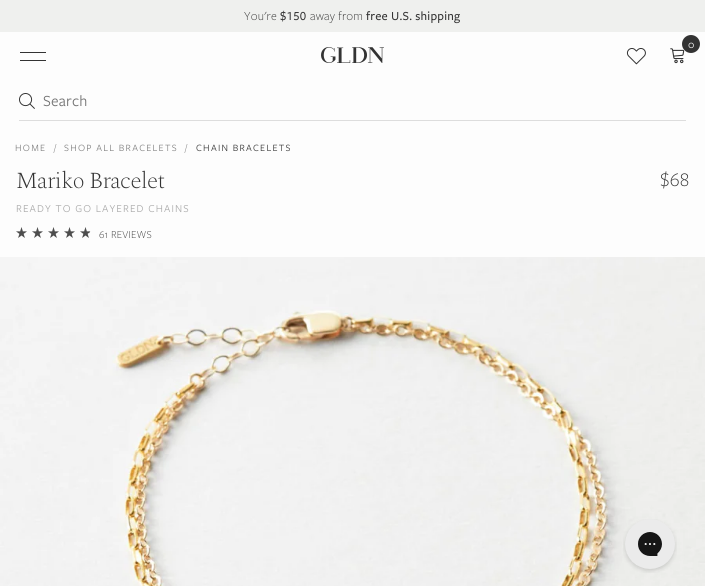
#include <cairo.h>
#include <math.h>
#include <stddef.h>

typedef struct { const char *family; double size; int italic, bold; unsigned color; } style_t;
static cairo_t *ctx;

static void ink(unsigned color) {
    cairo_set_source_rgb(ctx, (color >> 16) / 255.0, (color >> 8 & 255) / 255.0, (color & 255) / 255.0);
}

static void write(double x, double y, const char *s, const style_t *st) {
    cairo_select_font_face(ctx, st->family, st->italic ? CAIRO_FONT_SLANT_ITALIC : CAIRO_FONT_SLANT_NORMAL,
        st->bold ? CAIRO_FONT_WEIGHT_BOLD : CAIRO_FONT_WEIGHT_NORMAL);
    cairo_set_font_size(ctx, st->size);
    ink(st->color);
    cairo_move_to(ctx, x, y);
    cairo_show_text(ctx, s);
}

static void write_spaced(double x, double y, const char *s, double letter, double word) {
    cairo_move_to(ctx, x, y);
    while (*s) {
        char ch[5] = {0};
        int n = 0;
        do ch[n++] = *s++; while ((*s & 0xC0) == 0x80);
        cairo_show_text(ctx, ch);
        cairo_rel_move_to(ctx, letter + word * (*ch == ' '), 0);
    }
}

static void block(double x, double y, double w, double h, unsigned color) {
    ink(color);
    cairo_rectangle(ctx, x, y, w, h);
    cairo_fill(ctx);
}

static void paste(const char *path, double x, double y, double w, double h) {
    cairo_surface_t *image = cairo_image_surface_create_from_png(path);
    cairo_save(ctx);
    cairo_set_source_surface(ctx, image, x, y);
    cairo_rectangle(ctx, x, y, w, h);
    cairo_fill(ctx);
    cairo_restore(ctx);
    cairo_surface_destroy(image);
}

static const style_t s1 = {"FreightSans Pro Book", 11, 0, 0, 0xfdfdfd};

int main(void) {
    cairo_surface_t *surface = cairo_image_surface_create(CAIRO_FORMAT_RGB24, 705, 586);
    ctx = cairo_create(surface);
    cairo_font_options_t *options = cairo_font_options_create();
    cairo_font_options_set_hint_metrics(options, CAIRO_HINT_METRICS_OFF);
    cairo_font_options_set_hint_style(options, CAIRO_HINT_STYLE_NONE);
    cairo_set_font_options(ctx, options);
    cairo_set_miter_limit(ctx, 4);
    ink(0xfdfdfd);
    cairo_paint(ctx);
    block(0, 0, 705, 32, 0xeff0ee);
    cairo_select_font_face(ctx, "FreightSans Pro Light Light", CAIRO_FONT_SLANT_NORMAL, CAIRO_FONT_WEIGHT_NORMAL);
    cairo_set_font_size(ctx, 12.75);
    ink(0x333333);
    write_spaced(244, 20, "You're", 0.2, 0);
    cairo_select_font_face(ctx, "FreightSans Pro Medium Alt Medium", CAIRO_FONT_SLANT_NORMAL, CAIRO_FONT_WEIGHT_NORMAL);
    write_spaced(280, 20, "$150", 0.2, 0);
    cairo_select_font_face(ctx, "FreightSans Pro Light Light", CAIRO_FONT_SLANT_NORMAL, CAIRO_FONT_WEIGHT_NORMAL);
    write_spaced(310, 20, "away from", 0.2, 0);
    cairo_select_font_face(ctx, "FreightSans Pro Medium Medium", CAIRO_FONT_SLANT_NORMAL, CAIRO_FONT_WEIGHT_NORMAL);
    write_spaced(366, 20, "free U.S. shipping", 0.2, 0);
    paste("pic1.png", 670, 48, 15, 16);
    cairo_arc(ctx, 691, 44, 9, 0, 2 * M_PI);
    cairo_fill(ctx);
    write(688, 48, "0", &s1);
    paste("pic2.png", 626, 48, 20, 17);
    block(20, 52, 26, 1, 0x333333);
    block(20, 60, 26, 1, 0x333333);
    paste("pic3.png", 321, 47, 63, 16);
    paste("pic4.png", 19, 93, 16, 16);
    block(19, 120, 667, 1, 0xdddddd);
    cairo_set_font_size(ctx, 16);
    ink(0x707070);
    write_spaced(43, 106, "Search", 0.2, 0);
    cairo_set_font_size(ctx, 10);
    ink(0x808080);
    write_spaced(15, 151, "HOME", 1.25, 0);
    write_spaced(54, 151, "/", 1.25, 0);
    write_spaced(64, 151, "SHOP ALL BRACELETS", 1.25, 0);
    write_spaced(185, 151, "/", 1.25, 0);
    ink(0x333333);
    write_spaced(196, 151, "CHAIN BRACELETS", 1.25, 0);
    cairo_select_font_face(ctx, "Spectral ExtraLight", CAIRO_FONT_SLANT_NORMAL, CAIRO_FONT_WEIGHT_NORMAL);
    cairo_set_font_size(ctx, 23);
    write_spaced(16, 188, "Mariko Bracelet", -0.5, 0);
    cairo_select_font_face(ctx, "FreightSans Pro Book", CAIRO_FONT_SLANT_NORMAL, CAIRO_FONT_WEIGHT_NORMAL);
    cairo_set_font_size(ctx, 11);
    ink(0xaaaaaa);
    write_spaced(16, 212, "READY TO GO LAYERED CHAINS", 1.1, 0);
    paste("pic5.png", 16, 227, 75, 11);
    paste("pic6.png", 16, 227, 74, 11);
    cairo_select_font_face(ctx, "FreightSans Pro Light Light", CAIRO_FONT_SLANT_NORMAL, CAIRO_FONT_WEIGHT_NORMAL);
    ink(0x333333);
    write_spaced(99, 238, "61 REVIEWS", 0.2, 0);
    cairo_set_font_size(ctx, 20);
    write_spaced(660, 186, "$68", 0.2, 0);
    paste("pic7.png", 0, 257, 705, 329);
    paste("pic8.png", 623, 519, 54, 54);
    cairo_surface_write_to_png(surface, "screenshot.png");
    cairo_font_options_destroy(options);
    cairo_destroy(ctx);
    cairo_surface_destroy(surface);
    return 0;
}
